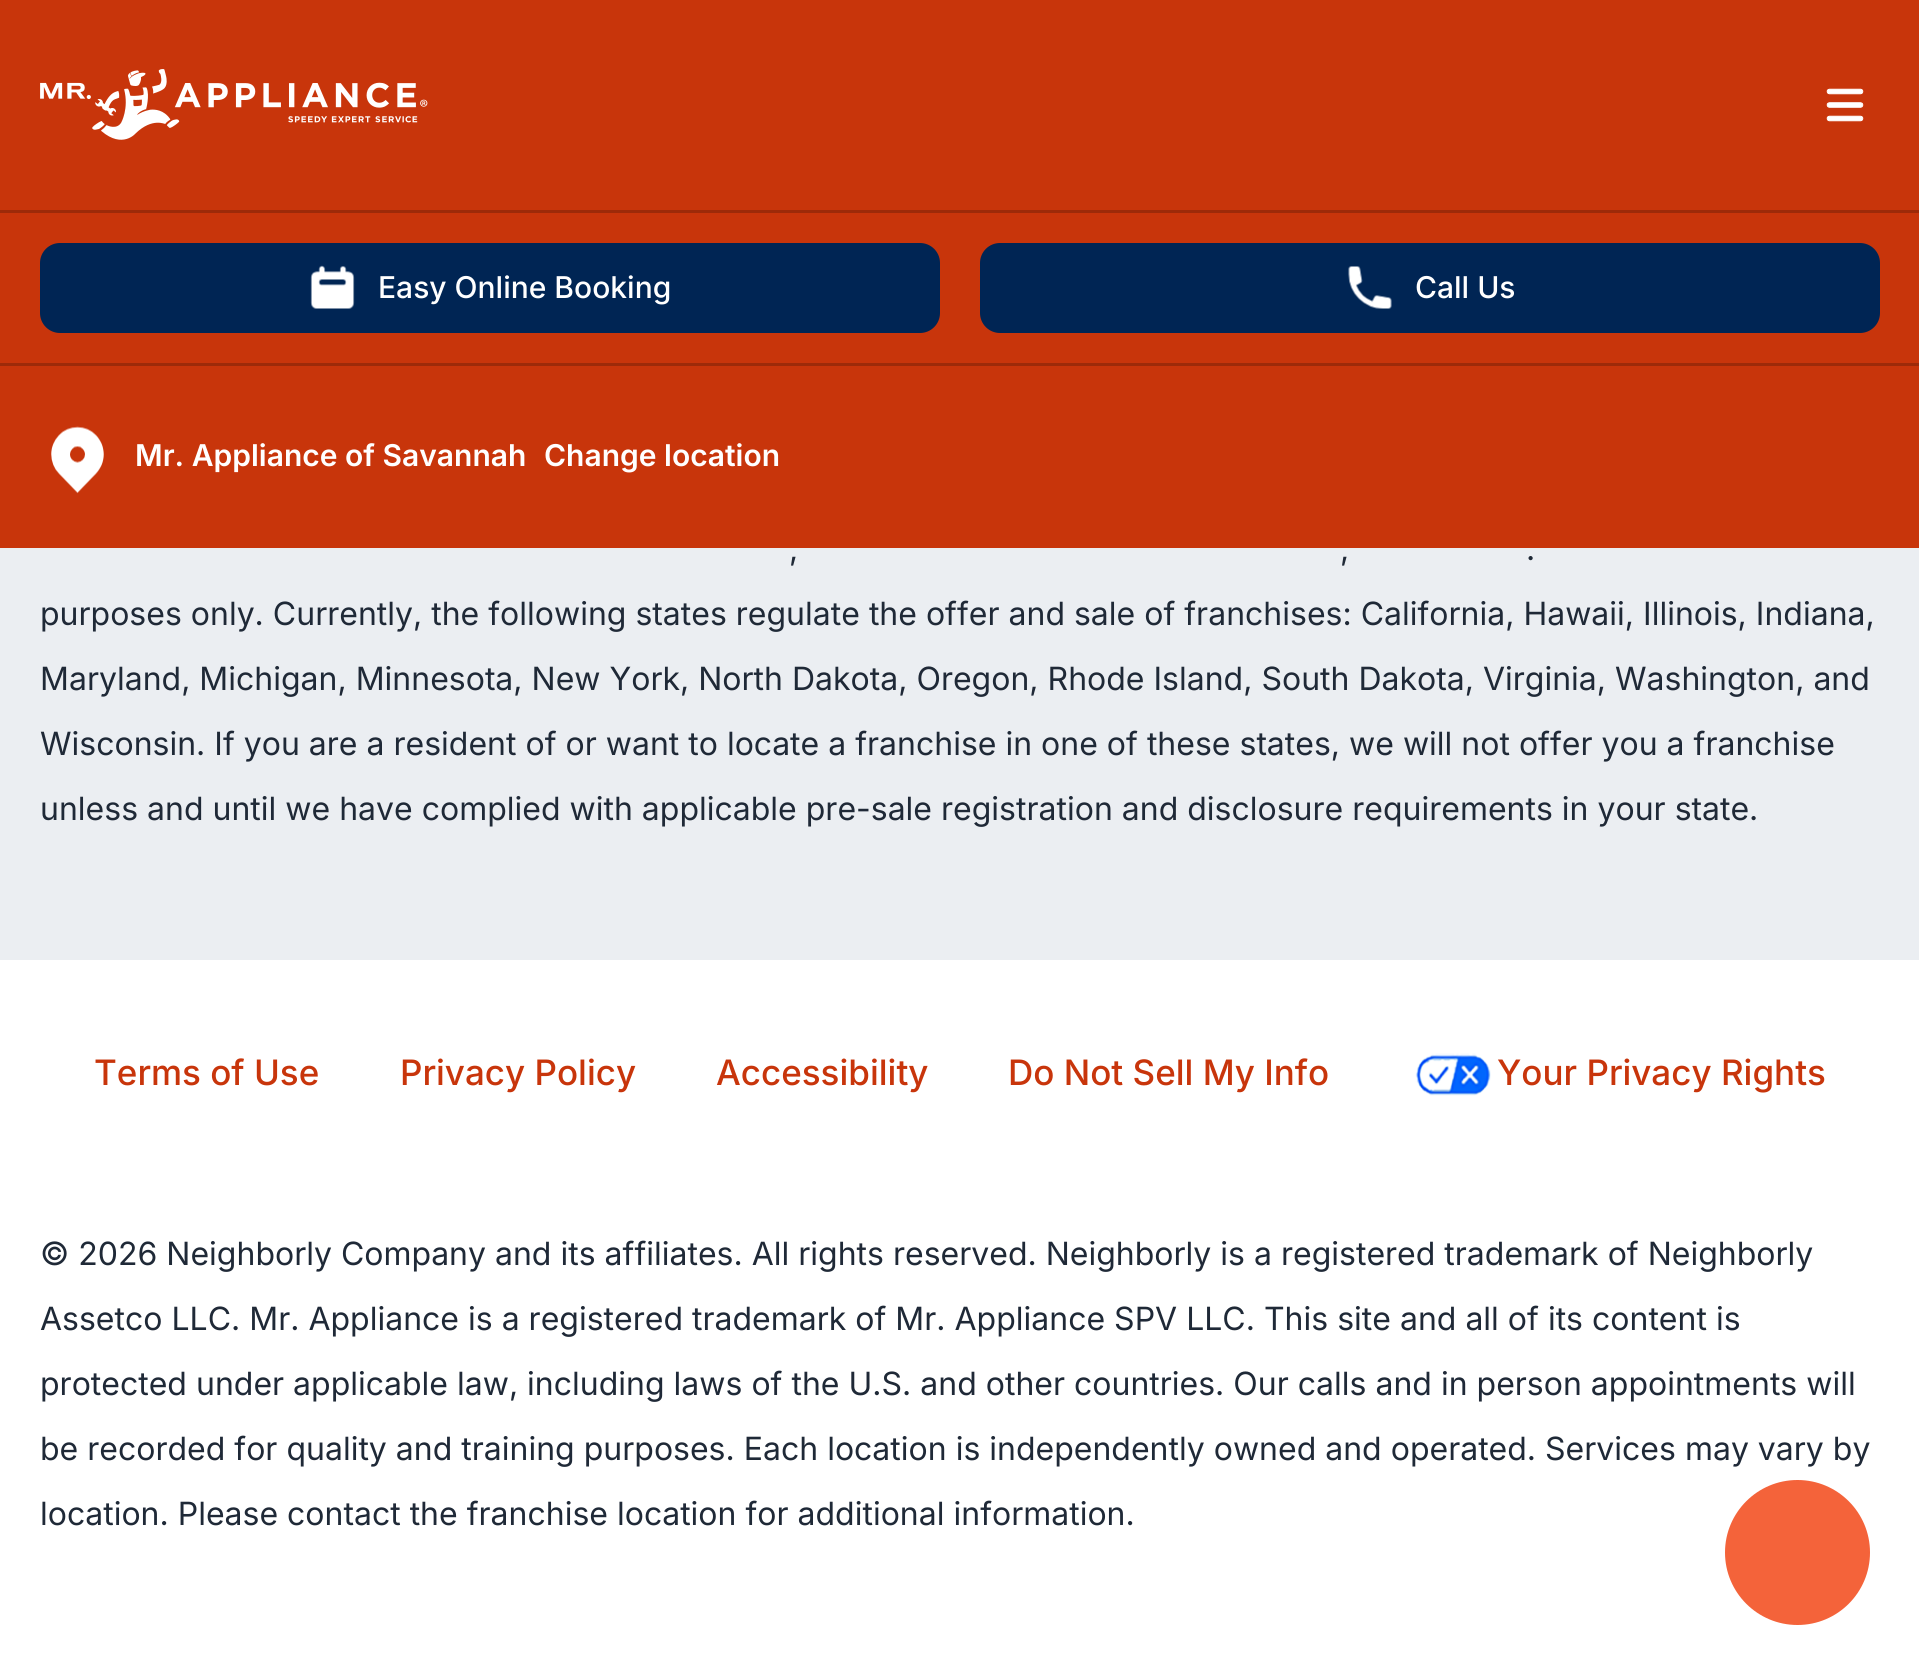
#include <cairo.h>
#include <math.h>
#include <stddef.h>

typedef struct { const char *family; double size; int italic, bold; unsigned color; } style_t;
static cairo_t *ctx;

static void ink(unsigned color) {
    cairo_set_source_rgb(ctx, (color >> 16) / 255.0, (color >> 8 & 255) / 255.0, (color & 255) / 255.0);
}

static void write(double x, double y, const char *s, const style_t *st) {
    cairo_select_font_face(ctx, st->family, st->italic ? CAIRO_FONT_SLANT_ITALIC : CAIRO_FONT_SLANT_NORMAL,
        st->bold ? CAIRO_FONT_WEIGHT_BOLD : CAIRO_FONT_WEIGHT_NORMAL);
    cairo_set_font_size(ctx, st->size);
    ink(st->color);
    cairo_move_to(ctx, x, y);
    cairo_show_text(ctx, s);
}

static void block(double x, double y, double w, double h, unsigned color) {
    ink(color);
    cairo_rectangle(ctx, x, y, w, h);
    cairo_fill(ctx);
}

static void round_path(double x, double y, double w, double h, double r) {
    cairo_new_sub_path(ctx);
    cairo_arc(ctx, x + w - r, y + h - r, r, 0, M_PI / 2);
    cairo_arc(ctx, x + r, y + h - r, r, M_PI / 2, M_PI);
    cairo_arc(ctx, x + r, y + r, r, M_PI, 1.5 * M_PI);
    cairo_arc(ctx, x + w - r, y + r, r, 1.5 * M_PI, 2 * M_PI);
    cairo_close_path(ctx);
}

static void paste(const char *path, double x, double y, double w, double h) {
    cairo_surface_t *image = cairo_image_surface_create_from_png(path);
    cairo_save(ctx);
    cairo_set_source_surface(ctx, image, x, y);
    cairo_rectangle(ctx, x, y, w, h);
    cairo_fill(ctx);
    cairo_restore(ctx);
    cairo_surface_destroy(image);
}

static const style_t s1 = {"Inter Medium", 30, 0, 0, 0xffffff};
static const style_t s2 = {"Inter SemiBold", 30, 0, 0, 0xffffff};
static const style_t s3 = {"Inter", 32, 0, 0, 0x1f2937};
static const style_t s4 = {"Inter Medium", 35, 0, 0, 0xc8350b};

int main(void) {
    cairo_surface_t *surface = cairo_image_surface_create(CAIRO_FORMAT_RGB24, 1919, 1673);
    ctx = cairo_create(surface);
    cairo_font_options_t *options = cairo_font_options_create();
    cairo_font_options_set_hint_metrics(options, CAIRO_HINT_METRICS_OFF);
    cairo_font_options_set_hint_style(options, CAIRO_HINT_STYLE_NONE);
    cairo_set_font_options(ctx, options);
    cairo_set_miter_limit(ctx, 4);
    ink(0xffffff);
    cairo_paint(ctx);
    block(0, 0, 1919, 548, 0xc8350b);
    paste("pic1.png", 40, 69, 388, 71);
    paste("pic2.png", 1826, 88, 38, 34);
    block(0, 210, 1919, 3, 0x9d2a09);
    block(0, 363, 1919, 3, 0x9d2a09);
    ink(0x002554);
    round_path(40, 243, 900, 90, 20);
    cairo_fill(ctx);
    paste("pic3.png", 310, 265, 45, 44);
    write(378, 298, "Easy Online Booking", &s1);
    ink(0x002554);
    round_path(980, 243, 900, 90, 20);
    cairo_fill(ctx);
    paste("pic4.png", 1348, 266, 44, 43);
    write(1415, 298, "Call Us", &s1);
    paste("pic5.png", 51, 426, 53, 68);
    write(135, 466, "Mr. Appliance of Savannah", &s2);
    write(544, 466, "Change location", &s2);
    block(0, 548, 1919, 412, 0xebeef2);
    write(789, 560, ",", &s3);
    write(1340, 560, ",", &s3);
    write(1526, 560, ".", &s3);
    write(40, 625, "purposes only. Currently, the following states regulate the offer and sale of franchises: California, Hawaii, Illinois, Indiana,", &s3);
    write(40, 690, "Maryland, Michigan, Minnesota, New York, North Dakota, Oregon, Rhode Island, South Dakota, Virginia, Washington, and", &s3);
    write(40, 755, "Wisconsin. If you are a resident of or want to locate a franchise in one of these states, we will not offer you a franchise", &s3);
    write(40, 820, "unless and until we have complied with applicable pre-sale registration and disclosure requirements in your state.", &s3);
    write(94, 1085, "Terms of Use", &s4);
    write(400, 1085, "Privacy Policy", &s4);
    write(716, 1085, "Accessibility", &s4);
    write(1008, 1085, "Do Not Sell My Info", &s4);
    paste("pic6.png", 1415, 1053, 76, 43);
    write(1497, 1085, "Your Privacy Rights", &s4);
    write(40, 1265, "© 2026 Neighborly Company and its affiliates. All rights reserved. Neighborly is a registered trademark of Neighborly", &s3);
    write(40, 1330, "Assetco LLC. Mr. Appliance is a registered trademark of Mr. Appliance SPV LLC. This site and all of its content is", &s3);
    write(40, 1395, "protected under applicable law, including laws of the U.S. and other countries. Our calls and in person appointments will", &s3);
    write(40, 1460, "be recorded for quality and training purposes. Each location is independently owned and operated. Services may vary by", &s3);
    write(40, 1525, "location. Please contact the franchise location for additional information.", &s3);
    ink(0xf4633a);
    cairo_new_path(ctx);
    cairo_arc(ctx, 1797.5, 1552.5, 72.5, 0, 2 * M_PI);
    cairo_fill(ctx);
    cairo_surface_write_to_png(surface, "screenshot.png");
    cairo_font_options_destroy(options);
    cairo_destroy(ctx);
    cairo_surface_destroy(surface);
    return 0;
}
